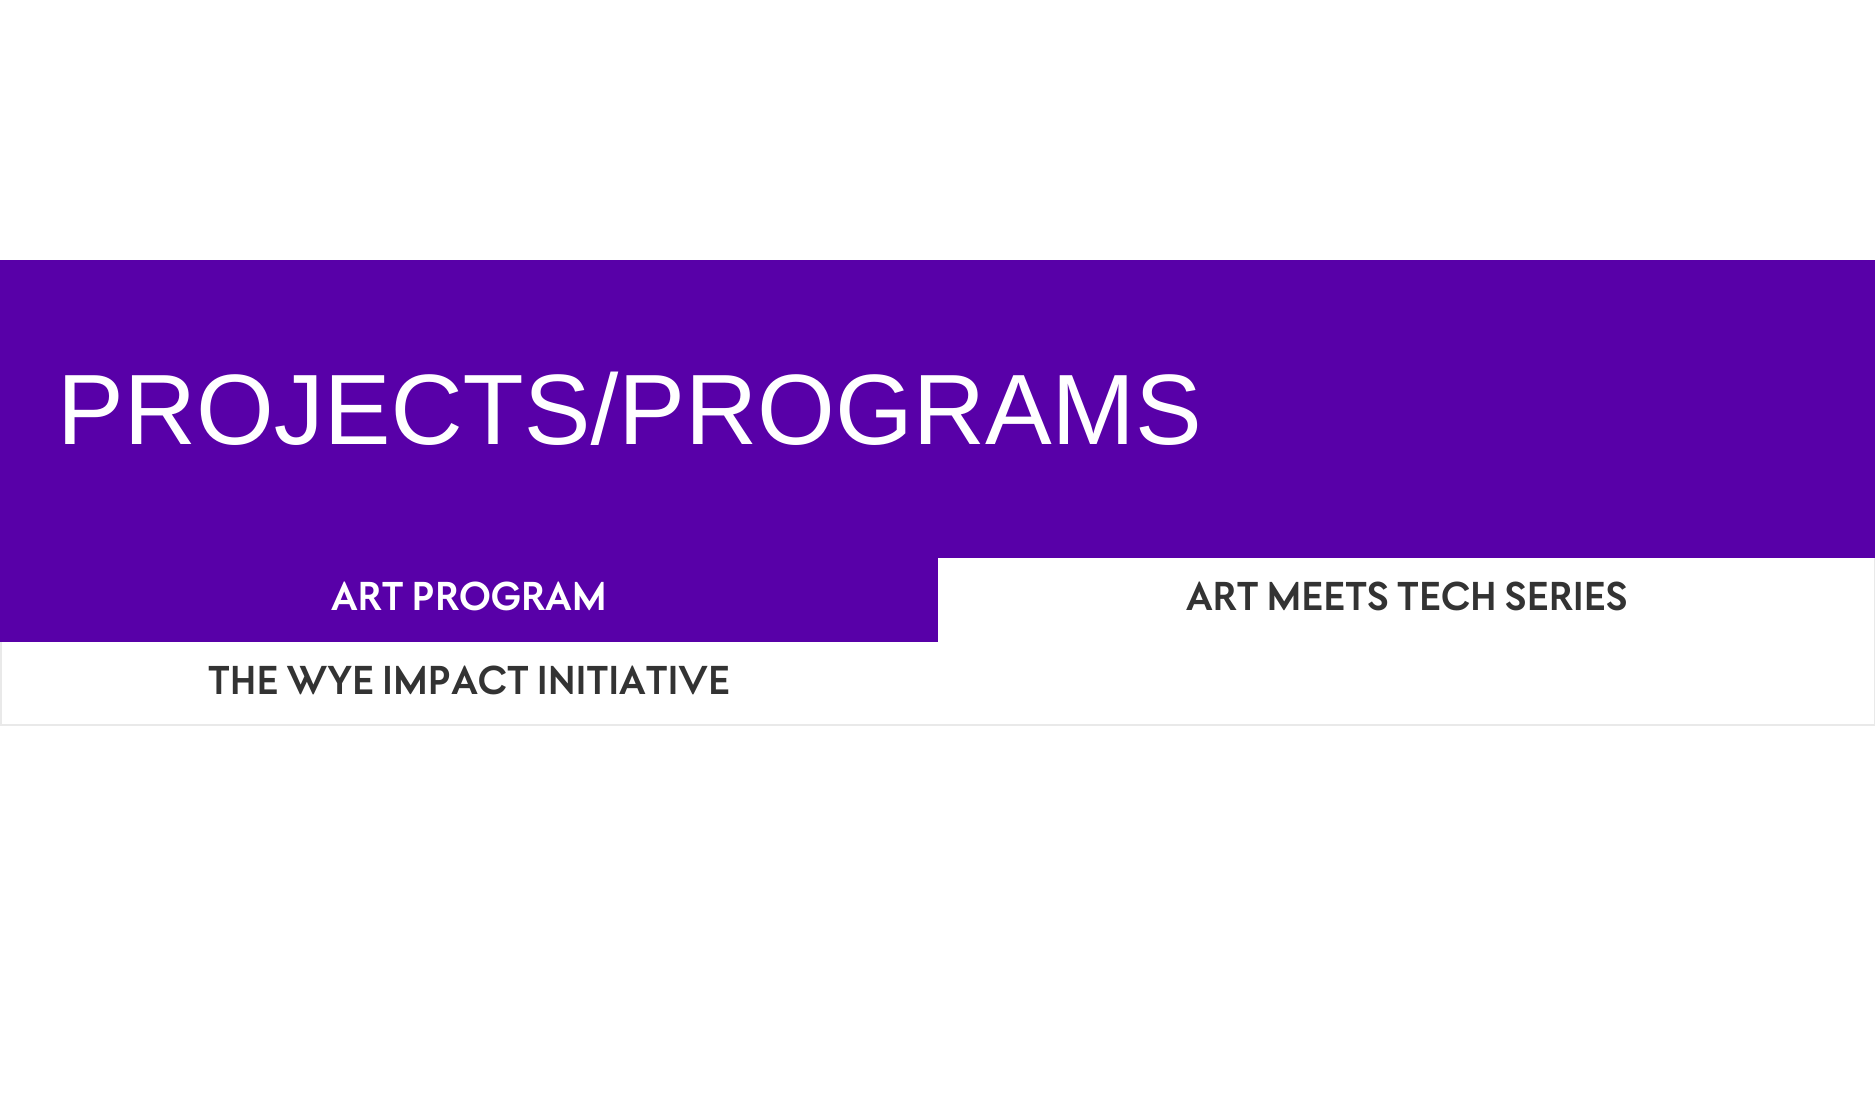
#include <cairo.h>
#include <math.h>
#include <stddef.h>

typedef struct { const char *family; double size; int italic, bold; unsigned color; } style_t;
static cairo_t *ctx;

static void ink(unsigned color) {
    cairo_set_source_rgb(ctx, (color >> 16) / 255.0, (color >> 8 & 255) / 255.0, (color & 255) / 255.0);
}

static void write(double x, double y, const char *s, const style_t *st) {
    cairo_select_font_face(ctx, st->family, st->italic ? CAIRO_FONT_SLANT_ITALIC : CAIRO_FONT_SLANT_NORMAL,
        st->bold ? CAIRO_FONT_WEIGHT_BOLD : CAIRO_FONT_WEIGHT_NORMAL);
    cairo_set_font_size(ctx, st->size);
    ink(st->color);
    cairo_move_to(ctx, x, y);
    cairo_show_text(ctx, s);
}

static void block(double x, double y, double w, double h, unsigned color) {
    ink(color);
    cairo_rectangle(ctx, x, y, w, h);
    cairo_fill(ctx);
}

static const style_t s1 = {"Liberation Sans", 100, 0, 0, 0xffffff};
static const style_t s2 = {"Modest", 40, 0, 1, 0xffffff};
static const style_t s3 = {"Modest", 40, 0, 1, 0x333333};

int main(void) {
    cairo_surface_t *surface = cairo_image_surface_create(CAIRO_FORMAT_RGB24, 1875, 1108);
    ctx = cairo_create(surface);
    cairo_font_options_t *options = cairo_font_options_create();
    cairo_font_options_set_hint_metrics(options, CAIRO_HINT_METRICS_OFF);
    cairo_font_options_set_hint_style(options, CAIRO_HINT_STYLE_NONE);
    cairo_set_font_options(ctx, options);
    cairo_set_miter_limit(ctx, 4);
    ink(0xffffff);
    cairo_paint(ctx);
    block(0, 260, 1875, 298, 0x5800a8);
    write(57, 444, "PROJECTS/PROGRAMS", &s1);
    block(1874, 558, 1, 168, 0xe9e9e9);
    block(0, 724, 1875, 2, 0xe9e9e9);
    block(0, 642, 2, 84, 0xe9e9e9);
    block(0, 558, 938, 84, 0x5800a8);
    write(331, 610, "ART PROGRAM", &s2);
    write(1186, 610, "ART MEETS TECH SERIES", &s3);
    write(208, 694, "THE WYE IMPACT INITIATIVE", &s3);
    cairo_surface_write_to_png(surface, "screenshot.png");
    cairo_font_options_destroy(options);
    cairo_destroy(ctx);
    cairo_surface_destroy(surface);
    return 0;
}
